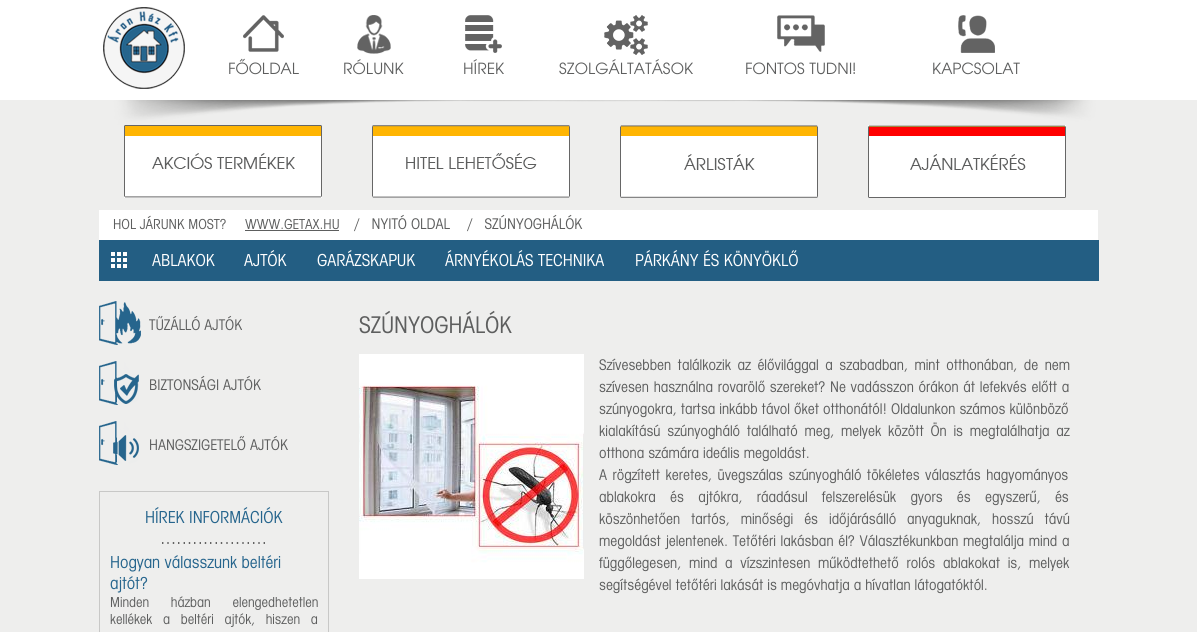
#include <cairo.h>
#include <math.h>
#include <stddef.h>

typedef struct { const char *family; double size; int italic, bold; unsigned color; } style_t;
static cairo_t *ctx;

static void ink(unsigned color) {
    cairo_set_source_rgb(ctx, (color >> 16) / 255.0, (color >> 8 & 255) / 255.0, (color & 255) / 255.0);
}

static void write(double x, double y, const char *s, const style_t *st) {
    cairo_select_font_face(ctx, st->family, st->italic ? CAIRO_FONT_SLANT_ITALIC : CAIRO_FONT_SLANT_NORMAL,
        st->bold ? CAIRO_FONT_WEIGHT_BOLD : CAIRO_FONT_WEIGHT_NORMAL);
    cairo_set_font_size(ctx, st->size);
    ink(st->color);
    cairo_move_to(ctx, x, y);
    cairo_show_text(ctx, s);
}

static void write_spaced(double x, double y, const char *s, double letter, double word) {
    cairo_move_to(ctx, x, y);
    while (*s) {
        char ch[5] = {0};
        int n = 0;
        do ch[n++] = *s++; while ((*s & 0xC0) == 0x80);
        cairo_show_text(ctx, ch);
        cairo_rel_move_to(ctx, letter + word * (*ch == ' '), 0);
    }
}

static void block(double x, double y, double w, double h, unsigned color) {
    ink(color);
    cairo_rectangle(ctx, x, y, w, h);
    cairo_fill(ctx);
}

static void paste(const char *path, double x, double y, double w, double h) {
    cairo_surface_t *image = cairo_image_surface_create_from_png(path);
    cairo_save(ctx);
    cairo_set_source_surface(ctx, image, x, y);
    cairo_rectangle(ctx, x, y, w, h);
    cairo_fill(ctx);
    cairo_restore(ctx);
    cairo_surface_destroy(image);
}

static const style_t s1 = {"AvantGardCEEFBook", 17, 0, 0, 0x5d5e5e};
static const style_t s2 = {"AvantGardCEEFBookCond", 15, 0, 0, 0x5d5e5e};
static const style_t s3 = {"AvantGardCEEFBookCond", 16, 0, 0, 0x5d5e5e};
static const style_t s4 = {"AvantGardCEEFBookCond", 18, 0, 0, 0xffffff};
static const style_t s5 = {"AvantGardCEEFBookCond", 18, 0, 0, 0x26658d};
static const style_t s6 = {"AvantGardCEEFBookCond", 25, 0, 0, 0x5d5e5e};

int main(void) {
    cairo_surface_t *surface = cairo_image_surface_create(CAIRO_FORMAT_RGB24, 1197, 632);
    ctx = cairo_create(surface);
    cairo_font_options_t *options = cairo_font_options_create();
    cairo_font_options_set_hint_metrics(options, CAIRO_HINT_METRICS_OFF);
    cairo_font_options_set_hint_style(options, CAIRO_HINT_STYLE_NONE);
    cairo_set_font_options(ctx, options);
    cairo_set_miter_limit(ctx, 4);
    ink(0xeeeeed);
    cairo_paint(ctx);
    block(0, 0, 1197, 100, 0xffffff);
    paste("pic1.png", 103, 7, 82, 82);
    paste("pic2.png", 243, 15, 41, 37);
    write(228, 74, "FŐOLDAL", &s1);
    paste("pic3.png", 357, 15, 34, 39);
    write(343, 74, "RÓLUNK", &s1);
    paste("pic4.png", 465, 15, 37, 38);
    write(463, 74, "HÍREK", &s1);
    paste("pic5.png", 604, 15, 44, 40);
    write(559, 74, "SZOLGÁLTATÁSOK", &s1);
    paste("pic6.png", 777, 15, 48, 37);
    write(745, 74, "FONTOS TUDNI!", &s1);
    paste("pic7.png", 958, 15, 37, 38);
    write(932, 74, "KAPCSOLAT", &s1);
    paste("pic8.png", 99, 100, 1000, 25);
    paste("pic9.png", 124, 125, 198, 73);
    paste("pic10.png", 372, 125, 198, 73);
    paste("pic11.png", 620, 125, 198, 73);
    paste("pic12.png", 868, 125, 198, 73);
    block(99, 210, 999, 30, 0xffffff);
    write(113, 229, "HOL JÁRUNK MOST?", &s2);
    write(245, 229, "WWW.GETAX.HU", &s2);
    block(245, 230, 94, 1, 0x5d5e5e);
    write(354, 229, "/   NYITÓ OLDAL", &s3);
    write(467, 229, "/   SZÚNYOGHÁLÓK", &s3);
    block(99, 240, 1000, 41, 0x235e83);
    paste("pic13.png", 111, 252, 16, 16);
    write(152, 266, "ABLAKOK", &s4);
    write(244, 266, "AJTÓK", &s4);
    write(317, 266, "GARÁZSKAPUK", &s4);
    write(445, 266, "ÁRNYÉKOLÁS TECHNIKA", &s4);
    write(635, 266, "PÁRKÁNY ÉS KÖNYÖKLŐ", &s4);
    paste("pic14.png", 99, 301, 42, 44);
    write(149, 330, "TŰZÁLLÓ AJTÓK", &s3);
    paste("pic15.png", 99, 361, 40, 44);
    write(149, 390, "BIZTONSÁGI AJTÓK", &s3);
    paste("pic16.png", 99, 421, 40, 44);
    write(149, 450, "HANGSZIGETELŐ AJTÓK", &s3);
    cairo_rectangle(ctx, 99.5, 491.5, 229, 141);
    ink(0xc8c8c7);
    cairo_set_line_width(ctx, 1);
    cairo_stroke(ctx);
    write(145, 523, "HÍREK INFORMÁCIÓK", &s5);
    paste("pic17.png", 162, 542, 103, 2);
    write(110, 568, "Hogyan válasszunk beltéri", &s5);
    write(110, 589, "ajtót?", &s5);
    cairo_set_font_size(ctx, 15);
    ink(0x5d5e5e);
    write_spaced(110, 607, "Minden házban elengedhetetlen", 0, 18);
    write_spaced(110, 624, "kellékek a beltéri ajtók, hiszen a", 0, 7);
    write(359, 333, "SZÚNYOGHÁLÓK", &s6);
    paste("pic18.png", 359, 354, 225, 225);
    cairo_set_font_size(ctx, 16);
    write_spaced(599, 370, "Szívesebben találkozik az élővilággal a szabadban, mint otthonában, de nem", 0, 2.5);
    write_spaced(599, 392, "szívesen használna rovarölő szereket? Ne vadásszon órákon át lefekvés előtt a", 0, 0.75);
    write(599, 414, "szúnyogokra, tartsa inkább távol őket otthonától! Oldalunkon számos különböző", &s3);
    write_spaced(599, 436, "kialakítású szúnyogháló található meg, melyek között Ön is megtalálhatja az", 0, 2.75);
    write(599, 458, "otthona számára ideális megoldást.", &s3);
    write_spaced(599, 480, "A rögzített keretes, üvegszálas szúnyogháló tökéletes választás hagyományos", 0, 1.5);
    write_spaced(599, 502, "ablakokra és ajtókra, ráadásul felszerelésük gyors és egyszerű, és", 0, 10.25);
    write_spaced(599, 524, "köszönhetően tartós, minőségi és időjárásálló anyaguknak, hosszú távú", 0, 7);
    write_spaced(599, 546, "megoldást jelentenek. Tetőtéri lakásban él? Választékunkban megtalálja mind a", 0, 0.75);
    write_spaced(599, 568, "függőlegesen, mind a vízszintesen működtethető rolós ablakokat is, melyek", 0, 3.75);
    write(599, 590, "segítségével tetőtéri lakását is megóvhatja a hívatlan látogatóktól.", &s3);
    cairo_surface_write_to_png(surface, "screenshot.png");
    cairo_font_options_destroy(options);
    cairo_destroy(ctx);
    cairo_surface_destroy(surface);
    return 0;
}
